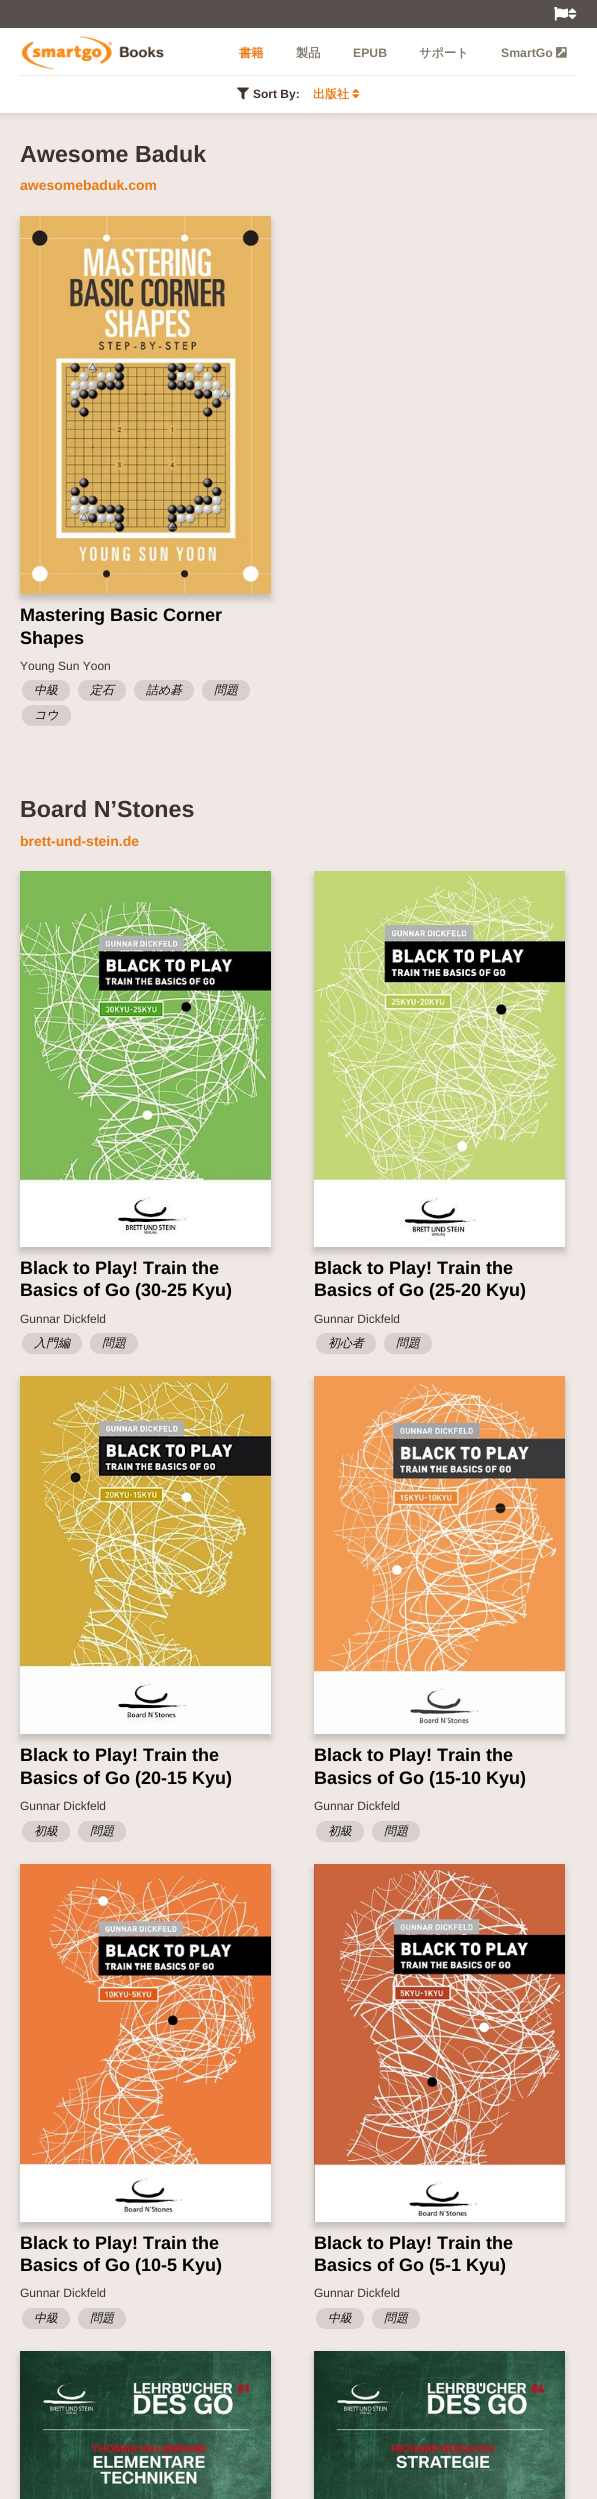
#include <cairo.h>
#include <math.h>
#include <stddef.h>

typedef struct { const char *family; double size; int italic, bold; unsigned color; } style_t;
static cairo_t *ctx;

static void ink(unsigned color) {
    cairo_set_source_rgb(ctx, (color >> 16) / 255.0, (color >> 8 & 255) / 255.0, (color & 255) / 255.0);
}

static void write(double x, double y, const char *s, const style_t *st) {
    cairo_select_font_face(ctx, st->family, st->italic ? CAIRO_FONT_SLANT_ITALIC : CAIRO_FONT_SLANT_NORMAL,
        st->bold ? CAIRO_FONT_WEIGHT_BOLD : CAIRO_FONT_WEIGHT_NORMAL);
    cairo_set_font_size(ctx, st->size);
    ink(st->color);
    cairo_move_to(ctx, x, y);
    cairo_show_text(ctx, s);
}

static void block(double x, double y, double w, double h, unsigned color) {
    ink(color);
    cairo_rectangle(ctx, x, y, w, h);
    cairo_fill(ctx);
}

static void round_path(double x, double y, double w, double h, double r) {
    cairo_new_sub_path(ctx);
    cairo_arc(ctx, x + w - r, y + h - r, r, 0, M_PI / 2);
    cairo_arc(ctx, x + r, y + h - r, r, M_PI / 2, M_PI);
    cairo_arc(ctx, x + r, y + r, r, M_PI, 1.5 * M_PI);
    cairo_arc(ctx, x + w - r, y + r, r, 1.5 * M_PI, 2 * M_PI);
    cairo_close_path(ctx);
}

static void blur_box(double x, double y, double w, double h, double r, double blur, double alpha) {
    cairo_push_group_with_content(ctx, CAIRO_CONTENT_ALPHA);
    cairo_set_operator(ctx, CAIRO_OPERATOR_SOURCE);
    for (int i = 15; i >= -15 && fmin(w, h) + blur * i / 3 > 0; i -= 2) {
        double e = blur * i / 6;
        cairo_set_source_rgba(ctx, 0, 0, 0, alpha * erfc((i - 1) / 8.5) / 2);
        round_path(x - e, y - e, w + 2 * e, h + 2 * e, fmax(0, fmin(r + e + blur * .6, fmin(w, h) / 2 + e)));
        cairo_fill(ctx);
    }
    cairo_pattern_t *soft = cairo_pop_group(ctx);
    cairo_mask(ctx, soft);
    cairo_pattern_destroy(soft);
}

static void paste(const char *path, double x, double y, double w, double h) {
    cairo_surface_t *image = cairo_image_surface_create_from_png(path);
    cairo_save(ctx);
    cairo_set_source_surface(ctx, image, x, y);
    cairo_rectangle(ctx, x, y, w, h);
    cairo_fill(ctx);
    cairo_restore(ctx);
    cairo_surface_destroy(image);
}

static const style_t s1 = {"WenQuanYi Zen Hei", 12.25, 0, 1, 0xeb7812};
static const style_t s2 = {"WenQuanYi Zen Hei", 12.25, 0, 1, 0x82796f};
static const style_t s3 = {"Liberation Sans", 12.25, 0, 1, 0x82796f};
static const style_t s4 = {"Liberation Sans", 12, 0, 1, 0x3f3229};
static const style_t s5 = {"WenQuanYi Zen Hei", 12, 0, 1, 0xeb7812};
static const style_t s6 = {"Liberation Sans", 23.25, 0, 1, 0x3f3229};
static const style_t s7 = {"Liberation Sans", 14, 0, 1, 0xeb7812};
static const style_t s8 = {"Liberation Sans", 18, 0, 1, 0x000000};
static const style_t s9 = {"Liberation Sans", 12, 0, 0, 0x3f3229};
static const style_t s10 = {"WenQuanYi Zen Hei Medium", 12, 1, 0, 0x111111};

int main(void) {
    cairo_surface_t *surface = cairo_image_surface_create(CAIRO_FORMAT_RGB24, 597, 2499);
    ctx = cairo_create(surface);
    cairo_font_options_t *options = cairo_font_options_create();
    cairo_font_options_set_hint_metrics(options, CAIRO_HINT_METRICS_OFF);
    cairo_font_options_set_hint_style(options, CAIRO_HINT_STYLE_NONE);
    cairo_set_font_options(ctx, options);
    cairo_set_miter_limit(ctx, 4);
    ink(0xefe8e4);
    cairo_paint(ctx);
    ink(0x000000);
    blur_box(0, 28, 597, 85, 0, 5, 0.15);
    block(0, 0, 597, 28, 0x58504c);
    paste("pic1.png", 554, 7, 14, 14);
    paste("pic2.png", 568, 8, 9, 12);
    block(0, 28, 597, 85, 0xffffff);
    paste("pic3.png", 21, 36, 143, 34);
    write(239, 57, "書籍", &s1);
    write(296, 57, "製品", &s2);
    write(353, 57, "EPUB", &s3);
    write(419, 57, "サポート", &s2);
    write(501, 57, "SmartGo", &s3);
    paste("pic4.png", 556, 47, 11, 11);
    block(20, 75, 557, 1, 0xeaeaea);
    paste("pic5.png", 237, 87, 12, 13);
    write(253, 98, "Sort By:", &s4);
    write(313, 98, "出版社", &s5);
    paste("pic6.png", 352, 88, 8, 11);
    write(20, 162, "Awesome Baduk", &s6);
    write(20, 190, "awesomebaduk.com", &s7);
    ink(0x000000);
    blur_box(20, 221, 251, 378, 0, 4, 0.2);
    paste("pic7.png", 20, 216, 251, 378);
    write(20, 621, "Mastering Basic Corner", &s8);
    write(20, 644, "Shapes", &s8);
    write(20, 670, "Young Sun Yoon", &s9);
    ink(0xd8d0cc);
    round_path(22, 680, 48, 21, 10);
    cairo_fill(ctx);
    write(34, 694, "中級", &s10);
    ink(0xd8d0cc);
    round_path(78, 680, 48, 21, 10);
    cairo_fill(ctx);
    write(90, 694, "定石", &s10);
    ink(0xd8d0cc);
    round_path(134, 680, 60, 21, 10);
    cairo_fill(ctx);
    write(146, 694, "詰め碁", &s10);
    ink(0xd8d0cc);
    round_path(202, 680, 48, 21, 10);
    cairo_fill(ctx);
    write(214, 694, "問題", &s10);
    ink(0xd8d0cc);
    round_path(22, 705, 49, 21, 10);
    cairo_fill(ctx);
    write(34, 719, "コウ", &s10);
    write(20, 817, "Board N’Stones", &s6);
    write(20, 846, "brett-und-stein.de", &s7);
    ink(0x000000);
    blur_box(20, 876, 251, 376, 0, 4, 0.2);
    paste("pic8.png", 20, 871, 251, 376);
    write(20, 1274, "Black to Play! Train the", &s8);
    write(20, 1296, "Basics of Go (30-25 Kyu)", &s8);
    write(20, 1323, "Gunnar Dickfeld", &s9);
    ink(0xd8d0cc);
    round_path(22, 1333, 60, 21, 10);
    cairo_fill(ctx);
    write(34, 1347, "入門編", &s10);
    ink(0xd8d0cc);
    round_path(90, 1333, 48, 21, 10);
    cairo_fill(ctx);
    write(102, 1347, "問題", &s10);
    ink(0x000000);
    blur_box(314, 876, 251, 376, 0, 4, 0.2);
    paste("pic9.png", 314, 871, 251, 376);
    write(314, 1274, "Black to Play! Train the", &s8);
    write(314, 1296, "Basics of Go (25-20 Kyu)", &s8);
    write(314, 1323, "Gunnar Dickfeld", &s9);
    ink(0xd8d0cc);
    round_path(316, 1333, 60, 21, 10);
    cairo_fill(ctx);
    write(328, 1347, "初心者", &s10);
    ink(0xd8d0cc);
    round_path(384, 1333, 48, 21, 10);
    cairo_fill(ctx);
    write(396, 1347, "問題", &s10);
    ink(0x000000);
    blur_box(20, 1381, 251, 358, 0, 4, 0.2);
    paste("pic10.png", 20, 1376, 251, 358);
    write(20, 1761, "Black to Play! Train the", &s8);
    write(20, 1784, "Basics of Go (20-15 Kyu)", &s8);
    write(20, 1810, "Gunnar Dickfeld", &s9);
    ink(0xd8d0cc);
    round_path(22, 1821, 48, 21, 10);
    cairo_fill(ctx);
    write(34, 1835, "初級", &s10);
    ink(0xd8d0cc);
    round_path(78, 1821, 48, 21, 10);
    cairo_fill(ctx);
    write(90, 1835, "問題", &s10);
    ink(0x000000);
    blur_box(314, 1381, 251, 358, 0, 4, 0.2);
    paste("pic11.png", 314, 1376, 251, 358);
    write(314, 1761, "Black to Play! Train the", &s8);
    write(314, 1784, "Basics of Go (15-10 Kyu)", &s8);
    write(314, 1810, "Gunnar Dickfeld", &s9);
    ink(0xd8d0cc);
    round_path(316, 1821, 48, 21, 10);
    cairo_fill(ctx);
    write(328, 1835, "初級", &s10);
    ink(0xd8d0cc);
    round_path(372, 1821, 48, 21, 10);
    cairo_fill(ctx);
    write(384, 1835, "問題", &s10);
    ink(0x000000);
    blur_box(20, 1869, 251, 358, 0, 4, 0.2);
    paste("pic12.png", 20, 1864, 251, 358);
    write(20, 2249, "Black to Play! Train the", &s8);
    write(20, 2271, "Basics of Go (10-5 Kyu)", &s8);
    write(20, 2297, "Gunnar Dickfeld", &s9);
    ink(0xd8d0cc);
    round_path(22, 2308, 48, 21, 10);
    cairo_fill(ctx);
    write(34, 2322, "中級", &s10);
    ink(0xd8d0cc);
    round_path(78, 2308, 48, 21, 10);
    cairo_fill(ctx);
    write(90, 2322, "問題", &s10);
    ink(0x000000);
    blur_box(314, 1869, 251, 358, 0, 4, 0.2);
    paste("pic13.png", 314, 1864, 251, 358);
    write(314, 2249, "Black to Play! Train the", &s8);
    write(314, 2271, "Basics of Go (5-1 Kyu)", &s8);
    write(314, 2297, "Gunnar Dickfeld", &s9);
    ink(0xd8d0cc);
    round_path(316, 2308, 48, 21, 10);
    cairo_fill(ctx);
    write(328, 2322, "中級", &s10);
    ink(0xd8d0cc);
    round_path(372, 2308, 48, 21, 10);
    cairo_fill(ctx);
    write(384, 2322, "問題", &s10);
    ink(0x000000);
    blur_box(20, 2356, 251, 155, 0, 4, 0.2);
    paste("pic14.png", 20, 2351, 251, 148);
    blur_box(314, 2356, 251, 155, 0, 4, 0.2);
    paste("pic15.png", 314, 2351, 251, 148);
    cairo_surface_write_to_png(surface, "screenshot.png");
    cairo_font_options_destroy(options);
    cairo_destroy(ctx);
    cairo_surface_destroy(surface);
    return 0;
}
